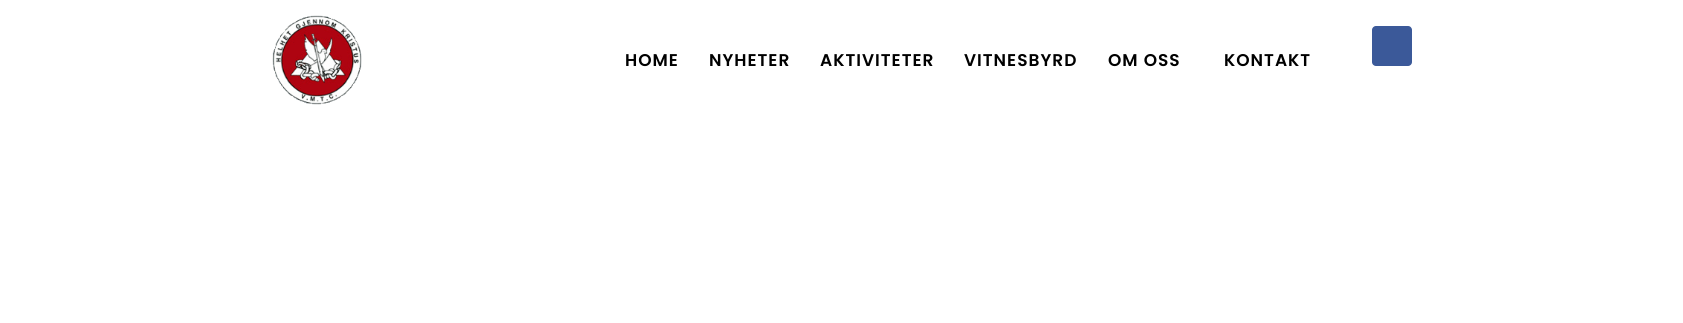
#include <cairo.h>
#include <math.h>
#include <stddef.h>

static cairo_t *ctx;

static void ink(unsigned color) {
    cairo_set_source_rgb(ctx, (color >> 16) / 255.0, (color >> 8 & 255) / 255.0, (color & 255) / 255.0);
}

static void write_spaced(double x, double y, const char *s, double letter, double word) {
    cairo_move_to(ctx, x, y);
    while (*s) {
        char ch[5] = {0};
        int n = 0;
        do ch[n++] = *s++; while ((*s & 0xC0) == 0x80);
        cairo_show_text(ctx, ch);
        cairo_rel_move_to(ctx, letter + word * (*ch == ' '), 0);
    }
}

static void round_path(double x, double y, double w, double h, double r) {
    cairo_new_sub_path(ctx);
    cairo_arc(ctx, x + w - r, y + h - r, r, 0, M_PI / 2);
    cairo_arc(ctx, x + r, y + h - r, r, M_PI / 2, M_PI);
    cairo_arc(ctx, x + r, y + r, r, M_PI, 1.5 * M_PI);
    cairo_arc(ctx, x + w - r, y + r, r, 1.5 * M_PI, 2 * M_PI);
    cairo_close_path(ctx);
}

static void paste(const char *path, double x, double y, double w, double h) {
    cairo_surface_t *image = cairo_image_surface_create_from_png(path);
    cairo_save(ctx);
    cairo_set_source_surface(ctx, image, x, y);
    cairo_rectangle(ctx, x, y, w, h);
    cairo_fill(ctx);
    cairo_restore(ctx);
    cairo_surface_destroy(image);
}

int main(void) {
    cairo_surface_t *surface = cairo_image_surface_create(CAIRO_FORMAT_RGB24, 1683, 323);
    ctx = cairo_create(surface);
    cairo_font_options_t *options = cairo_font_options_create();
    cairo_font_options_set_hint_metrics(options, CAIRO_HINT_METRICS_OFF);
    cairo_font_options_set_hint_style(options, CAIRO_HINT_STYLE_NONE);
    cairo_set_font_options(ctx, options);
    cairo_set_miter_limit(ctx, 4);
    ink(0xffffff);
    cairo_paint(ctx);
    paste("pic1.png", 272, 15, 90, 90);
    cairo_select_font_face(ctx, "Poppins SemiBold", CAIRO_FONT_SLANT_NORMAL, CAIRO_FONT_WEIGHT_NORMAL);
    cairo_set_font_size(ctx, 17);
    ink(0x000000);
    write_spaced(625, 66, "HOME", 1, 0);
    write_spaced(709, 66, "NYHETER", 1, 0);
    write_spaced(820, 66, "AKTIVITETER", 1, 0);
    write_spaced(964, 66, "VITNESBYRD", 1, 0);
    write_spaced(1108, 66, "OM OSS", 1, 0);
    write_spaced(1224, 66, "KONTAKT", 1, 0);
    ink(0x3b5999);
    round_path(1372, 26, 40, 40, 4);
    cairo_fill(ctx);
    cairo_surface_write_to_png(surface, "screenshot.png");
    cairo_font_options_destroy(options);
    cairo_destroy(ctx);
    cairo_surface_destroy(surface);
    return 0;
}
